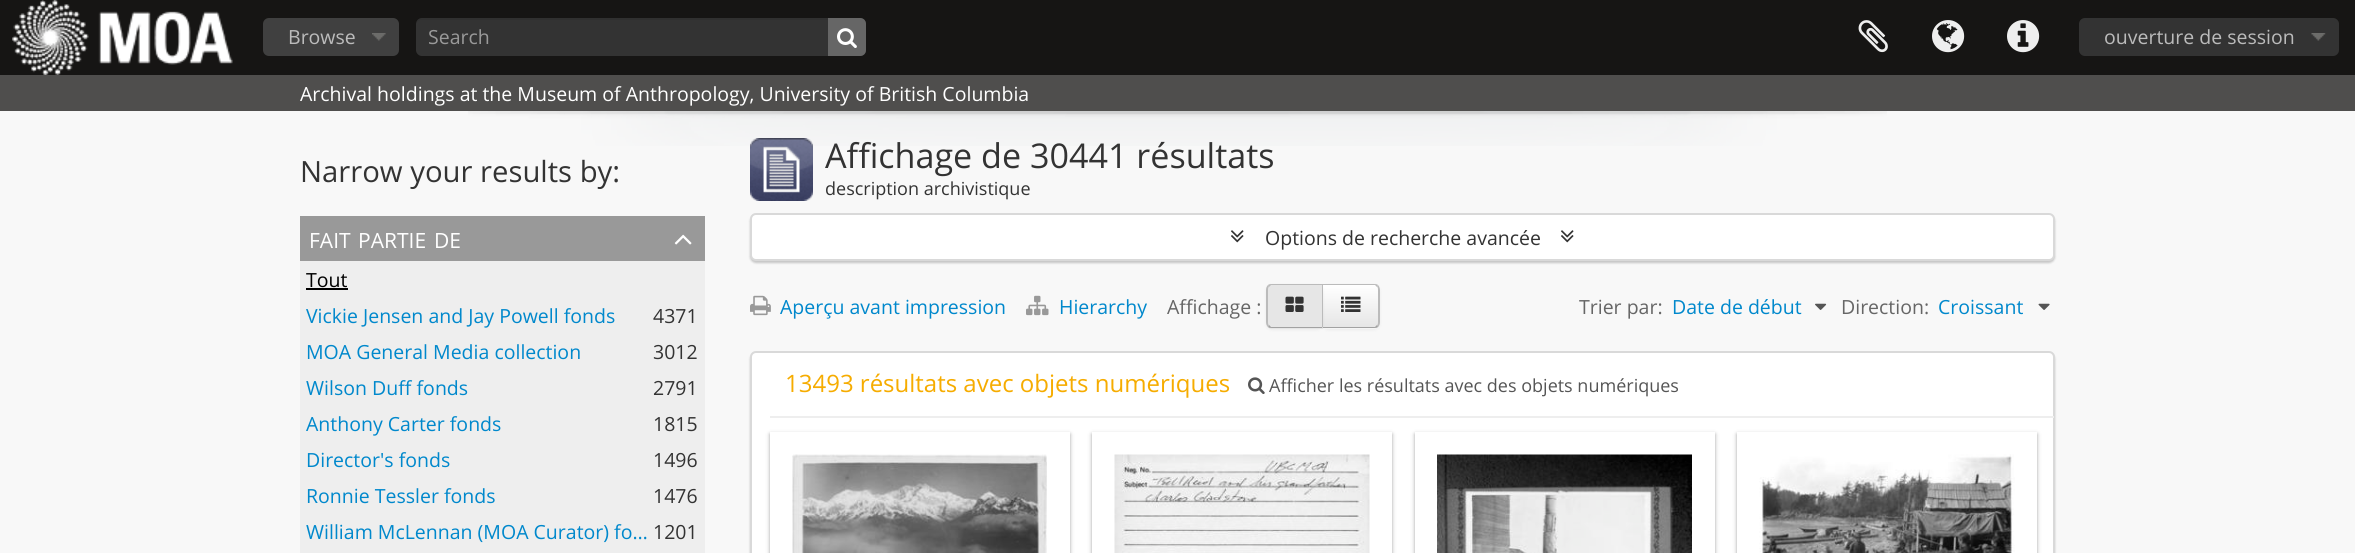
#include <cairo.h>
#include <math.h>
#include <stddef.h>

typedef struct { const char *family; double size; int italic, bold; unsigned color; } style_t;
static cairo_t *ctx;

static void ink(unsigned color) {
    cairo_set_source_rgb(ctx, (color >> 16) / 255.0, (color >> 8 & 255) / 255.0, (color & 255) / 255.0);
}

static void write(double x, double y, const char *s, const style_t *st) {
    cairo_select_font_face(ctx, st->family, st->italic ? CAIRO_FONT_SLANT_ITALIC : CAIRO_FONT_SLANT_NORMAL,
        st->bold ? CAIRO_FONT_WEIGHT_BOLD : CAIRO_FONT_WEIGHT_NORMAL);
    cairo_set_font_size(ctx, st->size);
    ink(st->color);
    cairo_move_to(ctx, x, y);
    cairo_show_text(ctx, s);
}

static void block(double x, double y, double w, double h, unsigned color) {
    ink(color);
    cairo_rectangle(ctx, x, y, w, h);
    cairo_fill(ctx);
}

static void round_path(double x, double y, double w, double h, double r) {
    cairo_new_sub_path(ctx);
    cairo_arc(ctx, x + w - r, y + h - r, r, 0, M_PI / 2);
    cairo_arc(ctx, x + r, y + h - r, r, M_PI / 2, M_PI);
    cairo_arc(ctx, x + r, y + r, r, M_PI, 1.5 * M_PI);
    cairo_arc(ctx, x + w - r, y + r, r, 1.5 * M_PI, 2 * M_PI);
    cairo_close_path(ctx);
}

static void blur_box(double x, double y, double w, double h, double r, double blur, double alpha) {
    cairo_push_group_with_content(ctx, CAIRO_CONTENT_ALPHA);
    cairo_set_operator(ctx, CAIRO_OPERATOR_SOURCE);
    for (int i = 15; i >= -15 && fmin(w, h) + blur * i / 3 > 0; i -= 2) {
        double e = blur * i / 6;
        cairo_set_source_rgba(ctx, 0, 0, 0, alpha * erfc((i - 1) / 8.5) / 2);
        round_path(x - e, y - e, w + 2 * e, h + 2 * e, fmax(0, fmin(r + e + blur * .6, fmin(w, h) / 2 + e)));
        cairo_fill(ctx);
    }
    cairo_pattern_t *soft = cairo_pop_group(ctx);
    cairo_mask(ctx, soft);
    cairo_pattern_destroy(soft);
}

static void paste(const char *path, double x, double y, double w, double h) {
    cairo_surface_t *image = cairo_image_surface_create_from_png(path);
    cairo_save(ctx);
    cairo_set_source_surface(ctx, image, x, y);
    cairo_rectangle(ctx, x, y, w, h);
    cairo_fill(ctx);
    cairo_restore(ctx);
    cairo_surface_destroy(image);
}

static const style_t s1 = {"Open Sans", 19.5, 0, 0, 0xbbbbbb};
static const style_t s2 = {"Open Sans", 19.5, 0, 0, 0x999999};
static const style_t s3 = {"Open Sans", 19.5, 0, 0, 0xffffff};
static const style_t s4 = {"Open Sans", 29.25, 0, 0, 0x333333};
static const style_t s5 = {"Open Sans", 21, 0, 0, 0xffffff};
static const style_t s6 = {"Open Sans", 19.5, 0, 0, 0x000000};
static const style_t s7 = {"Open Sans", 19.5, 0, 0, 0x0088cc};
static const style_t s8 = {"Open Sans", 19.5, 0, 0, 0x333333};
static const style_t s9 = {"Open Sans", 34.1, 0, 0, 0x333333};
static const style_t s10 = {"Open Sans", 18, 0, 0, 0x333333};
static const style_t s11 = {"Open Sans", 19.5, 0, 0, 0x666666};
static const style_t s12 = {"Open Sans", 24, 0, 0, 0xf6ac00};
static const style_t s13 = {"Open Sans", 18, 0, 0, 0x555555};

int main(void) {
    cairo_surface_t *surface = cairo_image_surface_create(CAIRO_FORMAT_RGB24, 2355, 553);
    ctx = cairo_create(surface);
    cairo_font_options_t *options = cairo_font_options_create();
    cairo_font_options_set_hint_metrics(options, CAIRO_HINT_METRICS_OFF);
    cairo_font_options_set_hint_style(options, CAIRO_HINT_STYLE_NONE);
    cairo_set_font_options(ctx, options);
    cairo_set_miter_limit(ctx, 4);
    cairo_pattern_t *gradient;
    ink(0xf8f8f8);
    cairo_paint(ctx);
    block(0, 0, 2355, 75, 0x161514);
    paste("pic1.png", 12, 0, 221, 75);
    ink(0x404040);
    round_path(263, 18, 136, 38, 6);
    cairo_fill(ctx);
    paste("pic2.png", 372, 33, 14, 8);
    write(288, 44, "Browse", &s1);
    ink(0x333333);
    round_path(416, 18, 450, 38, 6);
    cairo_fill(ctx);
    cairo_set_source_rgba(ctx, 0, 0, 0, 0.07);
    cairo_new_path(ctx);
    cairo_move_to(ctx, 422, 20);
    cairo_line_to(ctx, 860, 20);
    cairo_curve_to(ctx, 863, 20, 866, 22, 866, 26);
    cairo_line_to(ctx, 866, 24);
    cairo_curve_to(ctx, 866, 21, 863, 18, 860, 18);
    cairo_line_to(ctx, 422, 18);
    cairo_curve_to(ctx, 419, 18, 416, 21, 416, 24);
    cairo_line_to(ctx, 416, 26);
    cairo_curve_to(ctx, 416, 22, 418, 20, 422, 20);
    cairo_close_path(ctx);
    cairo_fill(ctx);
    write(428, 44, "Search", &s2);
    ink(0x666666);
    cairo_new_path(ctx);
    cairo_move_to(ctx, 828, 18);
    cairo_line_to(ctx, 860, 18);
    cairo_curve_to(ctx, 863.5, 18, 866, 20.5, 866, 24);
    cairo_line_to(ctx, 866, 50);
    cairo_curve_to(ctx, 866, 53.5, 863.5, 56, 860, 56);
    cairo_line_to(ctx, 828, 56);
    cairo_close_path(ctx);
    cairo_fill(ctx);
    paste("pic3.png", 837, 28, 20, 20);
    paste("pic4.png", 1858, 20, 30, 33);
    paste("pic5.png", 1932, 20, 33, 33);
    paste("pic6.png", 2007, 20, 33, 33);
    ink(0x333333);
    round_path(2079, 18, 260, 38, 6);
    cairo_fill(ctx);
    paste("pic7.png", 2311, 33, 15, 8);
    write(2104, 44, "ouverture de session", &s1);
    block(0, 75, 2355, 36, 0x4f4e4d);
    write(300, 101, "Archival holdings at the Museum of Anthropology, University of British Columbia", &s3);
    paste("pic8.png", 468, 111, 1419, 35);
    write(300, 182, "Narrow your results by:", &s4);
    block(300, 216, 405, 45, 0x999999);
    write(309, 248, "FAIT", &s5);
    write(358, 248, "PARTIE", &s5);
    write(434, 248, "DE", &s5);
    paste("pic9.png", 674, 234, 18, 11);
    block(300, 261, 405, 292, 0xeeeeee);
    write(306, 287, "Tout", &s6);
    block(306, 288, 42, 2, 0x000000);
    write(306, 323, "Vickie Jensen and Jay Powell fonds", &s7);
    write(653, 323, "4371", &s8);
    write(306, 359, "MOA General Media collection", &s7);
    write(653, 359, "3012", &s8);
    write(306, 395, "Wilson Duff fonds", &s7);
    write(653, 395, "2791", &s8);
    write(306, 431, "Anthony Carter fonds", &s7);
    write(653, 431, "1815", &s8);
    write(306, 467, "Director's fonds", &s7);
    write(653, 467, "1496", &s8);
    write(306, 503, "Ronnie Tessler fonds", &s7);
    write(653, 503, "1476", &s8);
    write(306, 539, "William McLennan (MOA Curator) fo…", &s7);
    write(653, 539, "1201", &s8);
    paste("pic10.png", 750, 138, 63, 63);
    write(825, 168, "Affichage de 30441 résultats", &s9);
    write(825, 195, "description archivistique", &s10);
    ink(0x000000);
    blur_box(750, 215, 1305, 48, 6, 1, 0.2);
    ink(0xffffff);
    round_path(751, 214, 1303, 46, 5);
    cairo_fill_preserve(ctx);
    ink(0xd9d9d9);
    cairo_stroke(ctx);
    paste("pic11.png", 1231, 230, 13, 13);
    write(1265, 245, "Options de recherche avancée", &s8);
    paste("pic11.png", 1561, 230, 13, 13);
    paste("pic12.png", 750, 295, 21, 21);
    write(780, 314, "Aperçu avant impression", &s7);
    paste("pic13.png", 1026, 295, 23, 21);
    write(1059, 314, "Hierarchy", &s7);
    write(1167, 314, "Affichage :", &s11);
    ink(0x000000);
    blur_box(1322, 285, 58, 45, 6, 1.5, 0.05);
    ink(0xf5f5f5);
    cairo_new_path(ctx);
    cairo_move_to(ctx, 1322, 284);
    cairo_line_to(ctx, 1374, 284);
    cairo_curve_to(ctx, 1377.5, 284, 1380, 286.5, 1380, 290);
    cairo_line_to(ctx, 1380, 323);
    cairo_curve_to(ctx, 1380, 326.5, 1377.5, 329, 1374, 329);
    cairo_line_to(ctx, 1322, 329);
    cairo_close_path(ctx);
    cairo_fill(ctx);
    cairo_save(ctx);
    cairo_new_path(ctx);
    cairo_move_to(ctx, 1322, 284);
    cairo_line_to(ctx, 1374, 284);
    cairo_curve_to(ctx, 1377.5, 284, 1380, 286.5, 1380, 290);
    cairo_line_to(ctx, 1380, 323);
    cairo_curve_to(ctx, 1380, 326.5, 1377.5, 329, 1374, 329);
    cairo_line_to(ctx, 1322, 329);
    cairo_close_path(ctx);
    cairo_clip(ctx);
    gradient = cairo_pattern_create_linear(1351, 285, 1351, 327);
    cairo_pattern_add_color_stop_rgba(gradient, 0, 1, 1, 1, 1);
    cairo_pattern_add_color_stop_rgba(gradient, 1, 0.902, 0.902, 0.902, 1);
    cairo_set_source(ctx, gradient);
    cairo_pattern_destroy(gradient);
    cairo_rectangle(ctx, 1323, 285, 57, 42);
    cairo_fill(ctx);
    cairo_restore(ctx);
    cairo_set_source_rgba(ctx, 1, 1, 1, 0.2);
    cairo_new_path(ctx);
    cairo_move_to(ctx, 1323, 286);
    cairo_line_to(ctx, 1357, 286);
    cairo_curve_to(ctx, 1379, 286, 1378, 282, 1378, 302);
    cairo_line_to(ctx, 1378, 325);
    cairo_curve_to(ctx, 1379, 324, 1379, 323, 1379, 322);
    cairo_line_to(ctx, 1379, 290);
    cairo_curve_to(ctx, 1379, 287, 1377, 285, 1374, 285);
    cairo_line_to(ctx, 1323, 285);
    cairo_close_path(ctx);
    cairo_fill(ctx);
    ink(0xbbbbbb);
    cairo_new_path(ctx);
    cairo_move_to(ctx, 1322, 284);
    cairo_line_to(ctx, 1323, 285);
    cairo_line_to(ctx, 1375, 285);
    cairo_line_to(ctx, 1377, 287);
    cairo_line_to(ctx, 1378, 285);
    cairo_curve_to(ctx, 1377, 284, 1375, 284, 1374, 284);
    cairo_close_path(ctx);
    cairo_fill(ctx);
    cairo_new_path(ctx);
    cairo_move_to(ctx, 1378, 285);
    cairo_curve_to(ctx, 1379, 286, 1380, 288, 1380, 290);
    cairo_line_to(ctx, 1380, 322);
    cairo_curve_to(ctx, 1380, 324, 1379, 326, 1378, 327);
    cairo_line_to(ctx, 1377, 325);
    cairo_curve_to(ctx, 1378, 325, 1378, 323, 1378, 322);
    cairo_line_to(ctx, 1378, 290);
    cairo_curve_to(ctx, 1378, 289, 1378, 287, 1377, 287);
    cairo_close_path(ctx);
    cairo_fill(ctx);
    ink(0xa2a2a2);
    cairo_new_path(ctx);
    cairo_move_to(ctx, 1378, 327);
    cairo_curve_to(ctx, 1377, 328, 1375, 328, 1374, 328);
    cairo_line_to(ctx, 1322, 328);
    cairo_line_to(ctx, 1323, 327);
    cairo_line_to(ctx, 1375, 327);
    cairo_line_to(ctx, 1377, 325);
    cairo_close_path(ctx);
    cairo_fill(ctx);
    ink(0x000000);
    blur_box(1266, 285, 57, 45, 6, 1.5, 0.05);
    ink(0xe6e6e6);
    cairo_new_path(ctx);
    cairo_move_to(ctx, 1272, 284);
    cairo_line_to(ctx, 1323, 284);
    cairo_line_to(ctx, 1323, 329);
    cairo_line_to(ctx, 1272, 329);
    cairo_curve_to(ctx, 1268.5, 329, 1266, 326.5, 1266, 323);
    cairo_line_to(ctx, 1266, 290);
    cairo_curve_to(ctx, 1266, 286.5, 1268.5, 284, 1272, 284);
    cairo_close_path(ctx);
    cairo_fill(ctx);
    ink(0xbbbbbb);
    cairo_new_path(ctx);
    cairo_move_to(ctx, 1272, 284);
    cairo_curve_to(ctx, 1271, 284, 1269, 284, 1268, 285);
    cairo_line_to(ctx, 1269, 287);
    cairo_line_to(ctx, 1271, 285);
    cairo_line_to(ctx, 1322, 285);
    cairo_line_to(ctx, 1322, 284);
    cairo_close_path(ctx);
    cairo_move_to(ctx, 1323, 328);
    cairo_line_to(ctx, 1323, 284);
    cairo_line_to(ctx, 1322, 284);
    cairo_line_to(ctx, 1322, 285);
    cairo_line_to(ctx, 1322, 327);
    cairo_close_path(ctx);
    cairo_fill(ctx);
    ink(0xa2a2a2);
    cairo_new_path(ctx);
    cairo_move_to(ctx, 1322, 328);
    cairo_line_to(ctx, 1272, 328);
    cairo_curve_to(ctx, 1271, 328, 1269, 328, 1268, 327);
    cairo_line_to(ctx, 1269, 325);
    cairo_line_to(ctx, 1271, 327);
    cairo_line_to(ctx, 1322, 327);
    cairo_close_path(ctx);
    cairo_fill(ctx);
    ink(0xbbbbbb);
    cairo_new_path(ctx);
    cairo_move_to(ctx, 1266, 290);
    cairo_line_to(ctx, 1266, 322);
    cairo_curve_to(ctx, 1266, 324, 1267, 326, 1268, 327);
    cairo_line_to(ctx, 1269, 325);
    cairo_curve_to(ctx, 1268, 325, 1268, 323, 1268, 322);
    cairo_line_to(ctx, 1268, 290);
    cairo_curve_to(ctx, 1268, 289, 1268, 287, 1269, 287);
    cairo_line_to(ctx, 1268, 285);
    cairo_curve_to(ctx, 1267, 286, 1266, 288, 1266, 290);
    cairo_close_path(ctx);
    cairo_fill(ctx);
    paste("pic14.png", 1285, 296, 19, 16);
    paste("pic15.png", 1341, 296, 20, 16);
    write(1579, 314, "Trier par:", &s11);
    write(1672, 314, "Date de début", &s7);
    paste("pic16.png", 1815, 303, 12, 7);
    write(1841, 314, "Direction:", &s11);
    write(1938, 314, "Croissant", &s7);
    paste("pic17.png", 2038, 303, 12, 7);
    ink(0x000000);
    blur_box(750, 353, 1305, 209, 6, 1, 0.2);
    ink(0xffffff);
    round_path(751, 352, 1303, 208, 5);
    cairo_fill_preserve(ctx);
    ink(0xd9d9d9);
    cairo_stroke(ctx);
    block(770, 416, 1284, 2, 0xeeeeee);
    write(785, 392, "13493 résultats avec objets numériques", &s12);
    paste("pic18.png", 1248, 377, 17, 17);
    write(1269, 392, "Afficher les résultats avec des objets numériques", &s13);
    ink(0x191919);
    blur_box(770, 434, 300, 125, 0, 2, 0.4);
    block(770, 432, 300, 121, 0xffffff);
    paste("pic19.png", 792, 454, 255, 99);
    cairo_save(ctx);
    cairo_set_fill_rule(ctx, CAIRO_FILL_RULE_EVEN_ODD);
    cairo_new_path(ctx);
    cairo_move_to(ctx, 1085, 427);
    cairo_line_to(ctx, 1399, 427);
    cairo_line_to(ctx, 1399, 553);
    cairo_line_to(ctx, 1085, 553);
    cairo_close_path(ctx);
    cairo_move_to(ctx, 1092, 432);
    cairo_line_to(ctx, 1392, 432);
    cairo_line_to(ctx, 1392, 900);
    cairo_line_to(ctx, 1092, 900);
    cairo_close_path(ctx);
    cairo_clip(ctx);
    ink(0x191919);
    blur_box(1092, 434, 300, 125, 0, 2, 0.4);
    cairo_restore(ctx);
    paste("pic20.png", 1114, 454, 256, 99);
    ink(0x191919);
    blur_box(1415, 434, 300, 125, 0, 2, 0.4);
    block(1415, 432, 300, 121, 0xffffff);
    paste("pic21.png", 1437, 454, 255, 99);
    cairo_save(ctx);
    cairo_set_fill_rule(ctx, CAIRO_FILL_RULE_EVEN_ODD);
    cairo_new_path(ctx);
    cairo_move_to(ctx, 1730, 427);
    cairo_line_to(ctx, 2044, 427);
    cairo_line_to(ctx, 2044, 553);
    cairo_line_to(ctx, 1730, 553);
    cairo_close_path(ctx);
    cairo_move_to(ctx, 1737, 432);
    cairo_line_to(ctx, 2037, 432);
    cairo_line_to(ctx, 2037, 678);
    cairo_line_to(ctx, 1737, 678);
    cairo_close_path(ctx);
    cairo_clip(ctx);
    ink(0x191919);
    blur_box(1737, 434, 300, 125, 0, 2, 0.4);
    cairo_restore(ctx);
    paste("pic22.png", 1759, 454, 256, 99);
    cairo_surface_write_to_png(surface, "screenshot.png");
    cairo_font_options_destroy(options);
    cairo_destroy(ctx);
    cairo_surface_destroy(surface);
    return 0;
}
